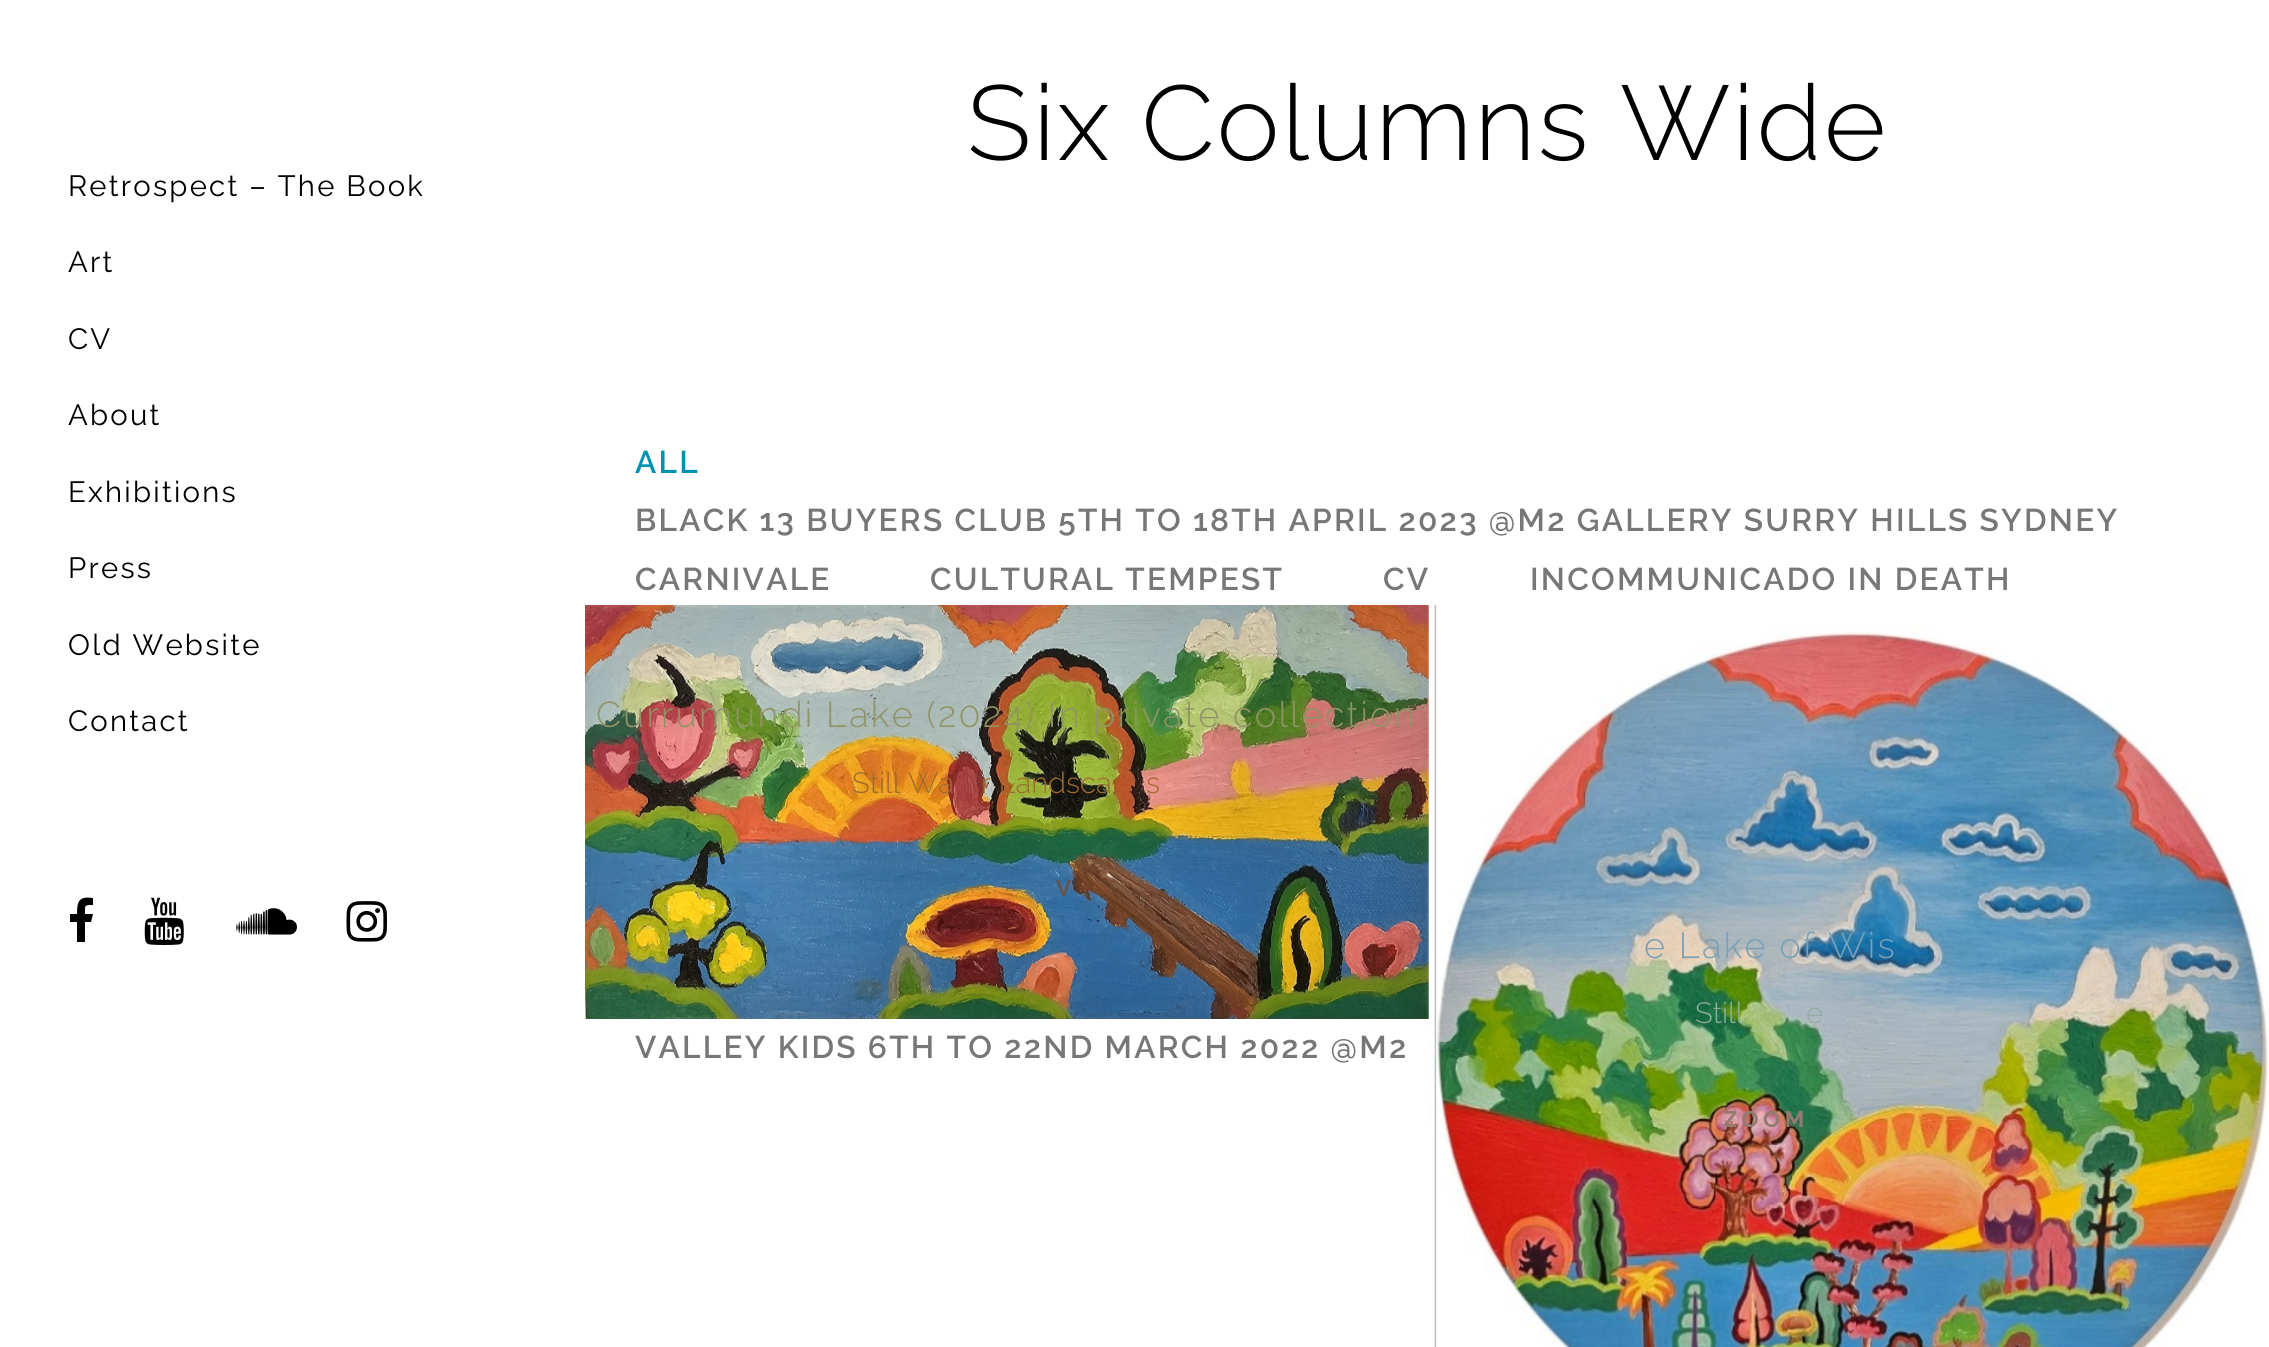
#include <cairo.h>
#include <math.h>
#include <stddef.h>

typedef struct { const char *family; double size; int italic, bold; unsigned color; } style_t;
static cairo_t *ctx;

static void ink(unsigned color) {
    cairo_set_source_rgb(ctx, (color >> 16) / 255.0, (color >> 8 & 255) / 255.0, (color & 255) / 255.0);
}

static void write(double x, double y, const char *s, const style_t *st) {
    cairo_select_font_face(ctx, st->family, st->italic ? CAIRO_FONT_SLANT_ITALIC : CAIRO_FONT_SLANT_NORMAL,
        st->bold ? CAIRO_FONT_WEIGHT_BOLD : CAIRO_FONT_WEIGHT_NORMAL);
    cairo_set_font_size(ctx, st->size);
    ink(st->color);
    cairo_move_to(ctx, x, y);
    cairo_show_text(ctx, s);
}

static void write_spaced(double x, double y, const char *s, double letter, double word) {
    cairo_move_to(ctx, x, y);
    while (*s) {
        char ch[5] = {0};
        int n = 0;
        do ch[n++] = *s++; while ((*s & 0xC0) == 0x80);
        cairo_show_text(ctx, ch);
        cairo_rel_move_to(ctx, letter + word * (*ch == ' '), 0);
    }
}

static void paste(const char *path, double x, double y, double w, double h) {
    cairo_surface_t *image = cairo_image_surface_create_from_png(path);
    cairo_save(ctx);
    cairo_set_source_surface(ctx, image, x, y);
    cairo_rectangle(ctx, x, y, w, h);
    cairo_fill(ctx);
    cairo_restore(ctx);
    cairo_surface_destroy(image);
}

static const style_t s1 = {"Raleway Light", 29.25, 0, 0, 0x9e6b2e};
static const style_t s2 = {"Raleway Light", 29.25, 0, 0, 0x91aca0};

int main(void) {
    cairo_surface_t *surface = cairo_image_surface_create(CAIRO_FORMAT_RGB24, 2269, 1347);
    ctx = cairo_create(surface);
    cairo_font_options_t *options = cairo_font_options_create();
    cairo_font_options_set_hint_metrics(options, CAIRO_HINT_METRICS_OFF);
    cairo_font_options_set_hint_style(options, CAIRO_HINT_STYLE_NONE);
    cairo_set_font_options(ctx, options);
    cairo_set_miter_limit(ctx, 4);
    ink(0xffffff);
    cairo_paint(ctx);
    cairo_select_font_face(ctx, "Raleway", CAIRO_FONT_SLANT_NORMAL, CAIRO_FONT_WEIGHT_NORMAL);
    cairo_set_font_size(ctx, 29.25);
    ink(0x000000);
    write_spaced(68, 196, "Retrospect – The Book", 2.25, 0);
    write_spaced(68, 272, "Art", 2.25, 0);
    write_spaced(68, 349, "CV", 2.25, 0);
    write_spaced(68, 425, "About", 2.25, 0);
    write_spaced(68, 502, "Exhibitions", 2.25, 0);
    write_spaced(68, 578, "Press", 2.25, 0);
    write_spaced(68, 655, "Old Website", 2.25, 0);
    write_spaced(68, 731, "Contact", 2.25, 0);
    cairo_new_path(ctx);
    cairo_move_to(ctx, 93, 898);
    cairo_line_to(ctx, 93, 905);
    cairo_curve_to(ctx, 84, 905, 85, 905, 85, 914);
    cairo_line_to(ctx, 93, 914);
    cairo_line_to(ctx, 91, 922);
    cairo_line_to(ctx, 85, 922);
    cairo_line_to(ctx, 85, 942);
    cairo_line_to(ctx, 77, 942);
    cairo_line_to(ctx, 77, 922);
    cairo_line_to(ctx, 70, 922);
    cairo_line_to(ctx, 70, 914);
    cairo_line_to(ctx, 77, 914);
    cairo_curve_to(ctx, 77, 901, 79, 896, 93, 898);
    cairo_close_path(ctx);
    cairo_fill(ctx);
    paste("pic1.png", 144, 897, 40, 48);
    paste("pic2.png", 236, 908, 61, 27);
    paste("pic3.png", 346, 901, 41, 41);
    cairo_select_font_face(ctx, "Raleway Light", CAIRO_FONT_SLANT_NORMAL, CAIRO_FONT_WEIGHT_NORMAL);
    cairo_set_font_size(ctx, 105.75);
    write_spaced(967, 160, "Six Columns Wide", 2.25, 0);
    cairo_select_font_face(ctx, "Raleway SemiBold", CAIRO_FONT_SLANT_NORMAL, CAIRO_FONT_WEIGHT_NORMAL);
    cairo_set_font_size(ctx, 31.5);
    ink(0x0092b2);
    write_spaced(635, 473, "ALL", 2.25, 0);
    ink(0x777777);
    write_spaced(635, 531, "BLACK 13 BUYERS CLUB 5TH TO 18TH APRIL 2023 @M2 GALLERY SURRY HILLS SYDNEY", 2.25, 0);
    write_spaced(635, 590, "CARNIVALE", 2.25, 0);
    write_spaced(930, 590, "CULTURAL TEMPEST", 2.25, 0);
    write_spaced(1383, 590, "CV", 2.25, 0);
    write_spaced(1530, 590, "INCOMMUNICADO IN DEATH", 2.25, 0);
    write_spaced(635, 1058, "VALLEY KIDS 6TH TO 22ND MARCH 2022 @M2", 2.25, 0);
    paste("pic4.png", 585, 605, 844, 414);
    cairo_select_font_face(ctx, "Raleway Light", CAIRO_FONT_SLANT_NORMAL, CAIRO_FONT_WEIGHT_NORMAL);
    cairo_set_font_size(ctx, 36);
    ink(0x909366);
    write_spaced(596, 727, "Currumundi Lake (2024) In private collection", 2.25, 0);
    write(852, 793, "Still Wa", &s1);
    write(981, 793, "r Landsca", &s1);
    write(1146, 793, "s", &s1);
    cairo_select_font_face(ctx, "Raleway", CAIRO_FONT_SLANT_NORMAL, CAIRO_FONT_WEIGHT_BOLD);
    cairo_set_font_size(ctx, 22.5);
    ink(0x625450);
    write_spaced(1056, 896, "V", 4.5, 0);
    paste("pic5.png", 1427, 605, 842, 742);
    cairo_select_font_face(ctx, "Raleway Light", CAIRO_FONT_SLANT_NORMAL, CAIRO_FONT_WEIGHT_NORMAL);
    cairo_set_font_size(ctx, 36);
    ink(0x79a0b6);
    write_spaced(1644, 958, "e Lake of Wis", 2.25, 0);
    write(1695, 1023, "Still", &s2);
    write(1806, 1023, "e", &s2);
    cairo_select_font_face(ctx, "Raleway", CAIRO_FONT_SLANT_NORMAL, CAIRO_FONT_WEIGHT_BOLD);
    cairo_set_font_size(ctx, 22.5);
    ink(0x957a72);
    write_spaced(1723, 1127, "ZOOM", 4.5, 0);
    cairo_surface_write_to_png(surface, "screenshot.png");
    cairo_font_options_destroy(options);
    cairo_destroy(ctx);
    cairo_surface_destroy(surface);
    return 0;
}
